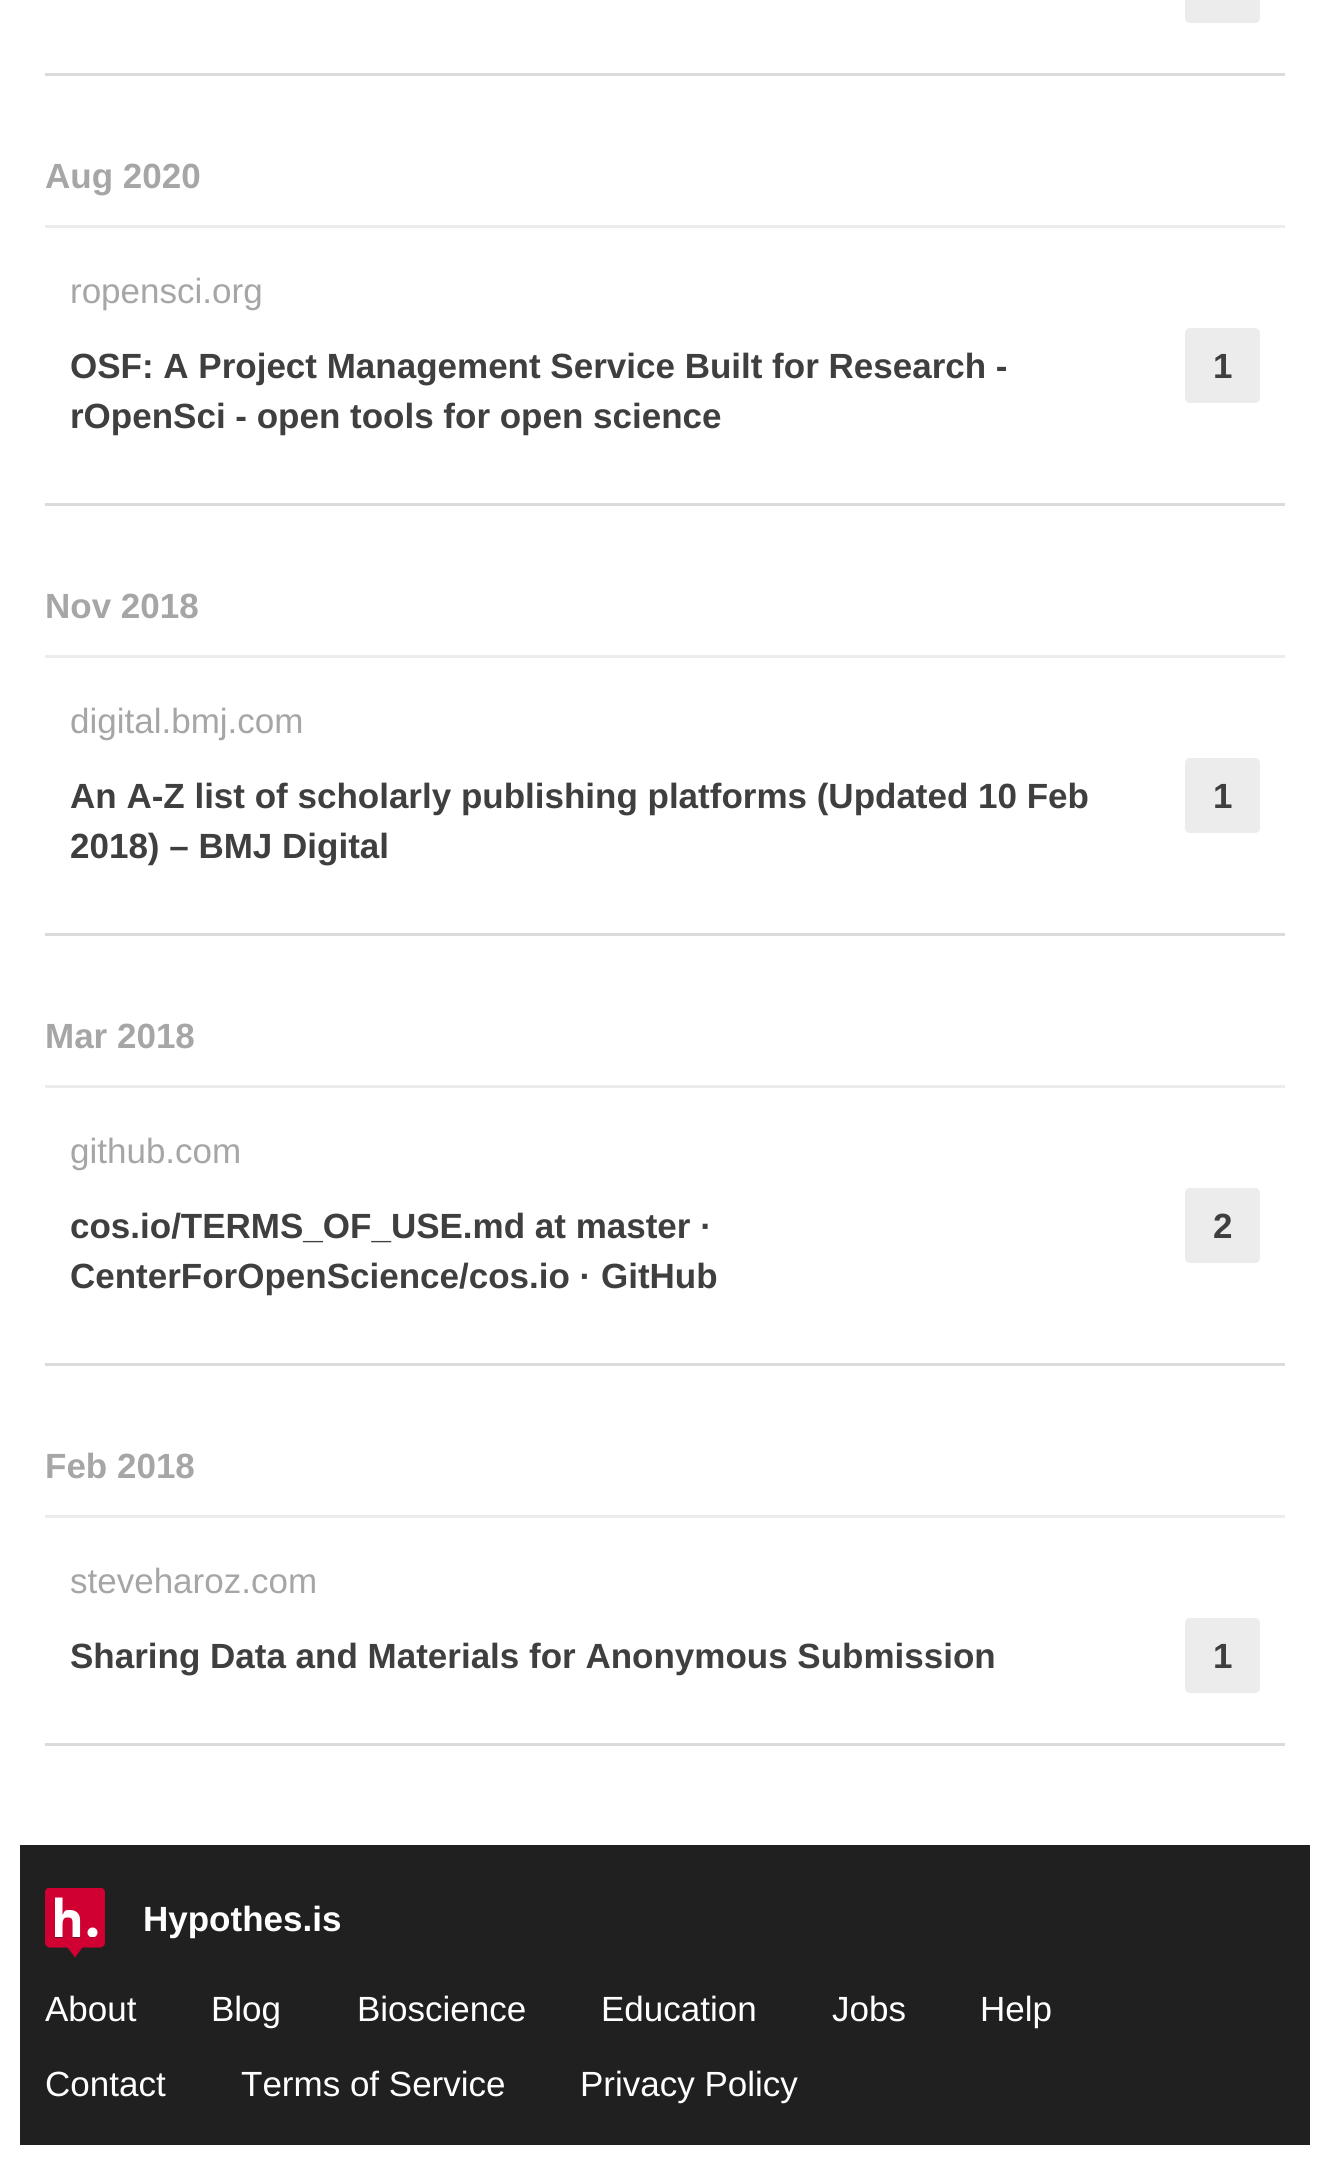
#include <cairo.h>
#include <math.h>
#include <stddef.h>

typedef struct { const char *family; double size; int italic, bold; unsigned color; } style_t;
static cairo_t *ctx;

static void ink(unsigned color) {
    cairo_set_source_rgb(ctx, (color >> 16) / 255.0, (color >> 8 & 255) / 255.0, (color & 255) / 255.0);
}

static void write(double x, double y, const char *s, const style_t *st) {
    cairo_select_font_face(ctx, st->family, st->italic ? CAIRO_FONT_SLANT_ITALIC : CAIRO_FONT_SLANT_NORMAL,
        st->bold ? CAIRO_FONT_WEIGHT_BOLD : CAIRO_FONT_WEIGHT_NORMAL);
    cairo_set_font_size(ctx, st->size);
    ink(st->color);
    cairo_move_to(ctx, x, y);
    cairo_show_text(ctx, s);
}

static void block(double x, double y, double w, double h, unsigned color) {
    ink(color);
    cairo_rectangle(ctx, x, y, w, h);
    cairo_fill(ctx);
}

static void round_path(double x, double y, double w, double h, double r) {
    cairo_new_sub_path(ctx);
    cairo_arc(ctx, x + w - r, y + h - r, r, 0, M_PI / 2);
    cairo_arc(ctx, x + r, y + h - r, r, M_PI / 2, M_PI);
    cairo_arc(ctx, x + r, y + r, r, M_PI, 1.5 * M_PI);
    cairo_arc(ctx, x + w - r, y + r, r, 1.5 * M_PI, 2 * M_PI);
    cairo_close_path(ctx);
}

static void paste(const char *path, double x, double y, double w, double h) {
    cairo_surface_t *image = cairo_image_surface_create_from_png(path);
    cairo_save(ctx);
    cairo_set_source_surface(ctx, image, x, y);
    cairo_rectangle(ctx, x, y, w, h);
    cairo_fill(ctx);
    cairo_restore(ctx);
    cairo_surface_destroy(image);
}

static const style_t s1 = {"Liberation Sans", 35, 0, 1, 0xa6a6a6};
static const style_t s2 = {"Liberation Sans", 35, 0, 0, 0xa6a6a6};
static const style_t s3 = {"Liberation Sans", 35, 0, 1, 0x3f3f3f};
static const style_t s4 = {"Liberation Sans", 35, 0, 1, 0xffffff};
static const style_t s5 = {"Liberation Sans", 35, 0, 0, 0xffffff};

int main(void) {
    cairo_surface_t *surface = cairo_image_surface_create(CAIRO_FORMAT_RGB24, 1328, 2164);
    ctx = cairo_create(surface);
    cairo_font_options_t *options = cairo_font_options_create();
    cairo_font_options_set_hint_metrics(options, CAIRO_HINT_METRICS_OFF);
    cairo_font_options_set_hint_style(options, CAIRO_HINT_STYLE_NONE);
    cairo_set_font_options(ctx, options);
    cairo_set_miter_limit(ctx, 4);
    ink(0xffffff);
    cairo_paint(ctx);
    block(45, 73, 1240, 3, 0xdbdbdb);
    ink(0xececec);
    round_path(1185, -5, 75, 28, 5);
    cairo_fill(ctx);
    block(45, 225, 1240, 3, 0xececec);
    write(45, 188, "Aug 2020", &s1);
    block(45, 503, 1240, 3, 0xdbdbdb);
    write(70, 303, "ropensci.org", &s2);
    write(70, 378, "OSF: A Project Management Service Built for Research -", &s3);
    write(70, 428, "rOpenSci - open tools for open science", &s3);
    ink(0xececec);
    round_path(1185, 328, 75, 75, 5);
    cairo_fill(ctx);
    write(1213, 378, "1", &s3);
    block(45, 655, 1240, 3, 0xececec);
    write(45, 618, "Nov 2018", &s1);
    block(45, 933, 1240, 3, 0xdbdbdb);
    write(70, 733, "digital.bmj.com", &s2);
    write(70, 808, "An A-Z list of scholarly publishing platforms (Updated 10 Feb", &s3);
    write(70, 858, "2018) – BMJ Digital", &s3);
    ink(0xececec);
    round_path(1185, 758, 75, 75, 5);
    cairo_fill(ctx);
    write(1213, 808, "1", &s3);
    block(45, 1085, 1240, 3, 0xececec);
    write(45, 1048, "Mar 2018", &s1);
    block(45, 1363, 1240, 3, 0xdbdbdb);
    write(70, 1163, "github.com", &s2);
    write(70, 1238, "cos.io/TERMS_OF_USE.md at master ·", &s3);
    write(70, 1288, "CenterForOpenScience/cos.io · GitHub", &s3);
    ink(0xececec);
    round_path(1185, 1188, 75, 75, 5);
    cairo_fill(ctx);
    write(1213, 1238, "2", &s3);
    block(45, 1515, 1240, 3, 0xececec);
    write(45, 1478, "Feb 2018", &s1);
    block(45, 1743, 1240, 3, 0xdbdbdb);
    write(70, 1593, "steveharoz.com", &s2);
    write(70, 1668, "Sharing Data and Materials for Anonymous Submission", &s3);
    ink(0xececec);
    round_path(1185, 1618, 75, 75, 5);
    cairo_fill(ctx);
    write(1213, 1668, "1", &s3);
    block(20, 1845, 1290, 300, 0x202020);
    paste("pic1.png", 45, 1888, 60, 70);
    write(143, 1931, "Hypothes.is", &s4);
    write(45, 2021, "About", &s5);
    write(211, 2021, "Blog", &s5);
    write(357, 2021, "Bioscience", &s5);
    write(601, 2021, "Education", &s5);
    write(832, 2021, "Jobs", &s5);
    write(980, 2021, "Help", &s5);
    write(45, 2096, "Contact", &s5);
    write(241, 2096, "Terms of Service", &s5);
    write(580, 2096, "Privacy Policy", &s5);
    cairo_surface_write_to_png(surface, "screenshot.png");
    cairo_font_options_destroy(options);
    cairo_destroy(ctx);
    cairo_surface_destroy(surface);
    return 0;
}
